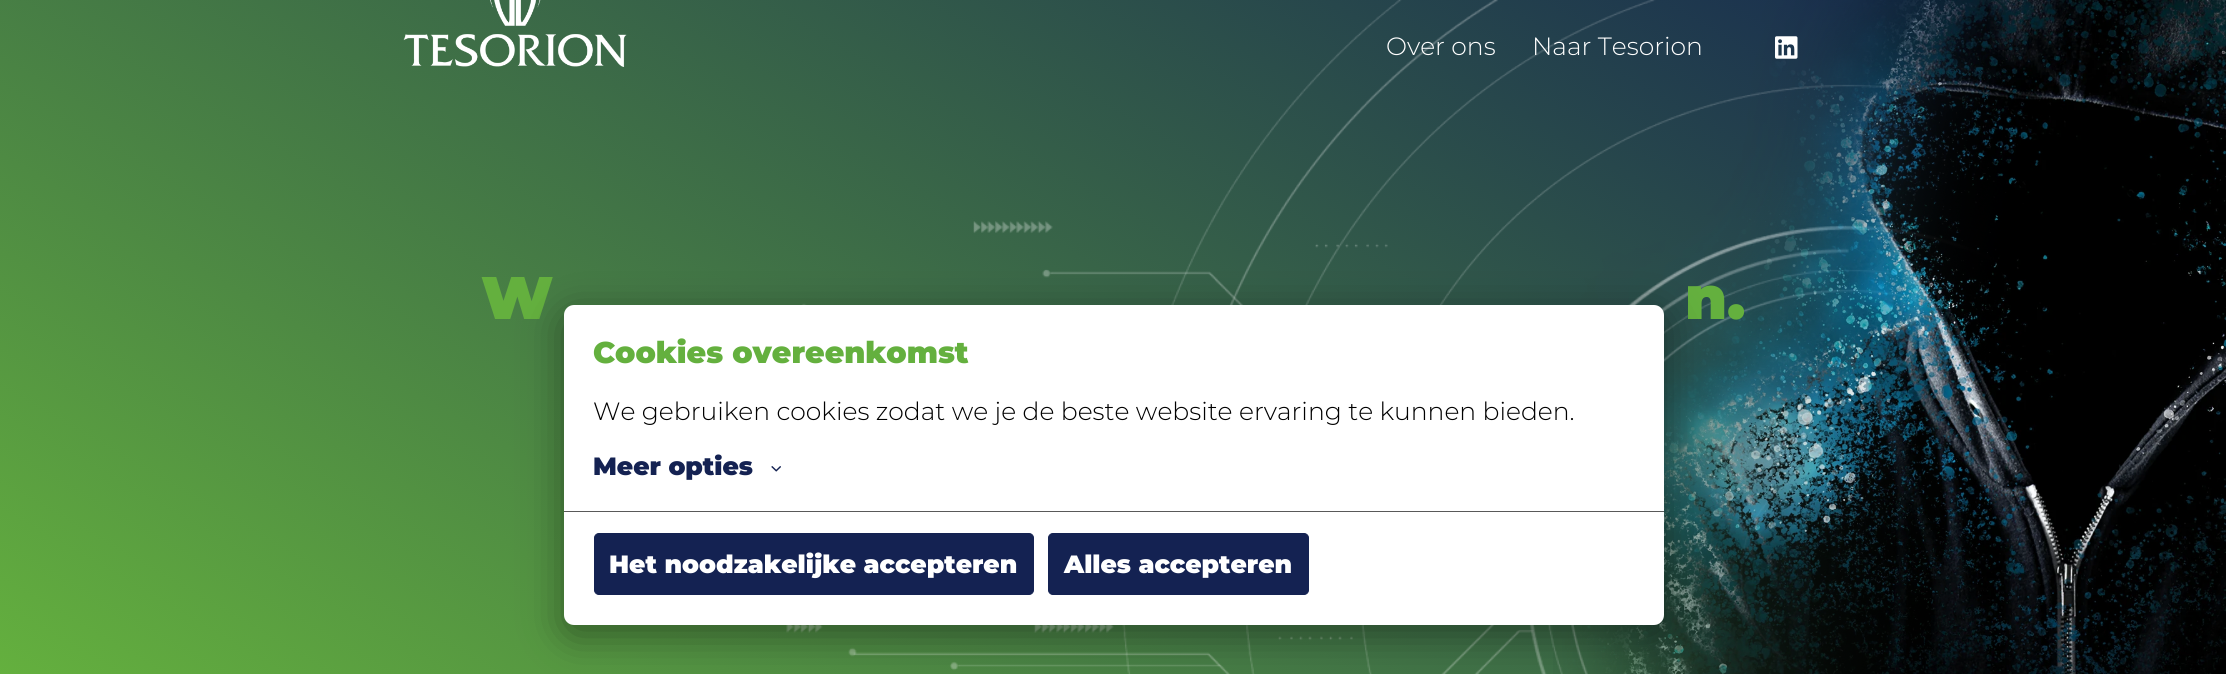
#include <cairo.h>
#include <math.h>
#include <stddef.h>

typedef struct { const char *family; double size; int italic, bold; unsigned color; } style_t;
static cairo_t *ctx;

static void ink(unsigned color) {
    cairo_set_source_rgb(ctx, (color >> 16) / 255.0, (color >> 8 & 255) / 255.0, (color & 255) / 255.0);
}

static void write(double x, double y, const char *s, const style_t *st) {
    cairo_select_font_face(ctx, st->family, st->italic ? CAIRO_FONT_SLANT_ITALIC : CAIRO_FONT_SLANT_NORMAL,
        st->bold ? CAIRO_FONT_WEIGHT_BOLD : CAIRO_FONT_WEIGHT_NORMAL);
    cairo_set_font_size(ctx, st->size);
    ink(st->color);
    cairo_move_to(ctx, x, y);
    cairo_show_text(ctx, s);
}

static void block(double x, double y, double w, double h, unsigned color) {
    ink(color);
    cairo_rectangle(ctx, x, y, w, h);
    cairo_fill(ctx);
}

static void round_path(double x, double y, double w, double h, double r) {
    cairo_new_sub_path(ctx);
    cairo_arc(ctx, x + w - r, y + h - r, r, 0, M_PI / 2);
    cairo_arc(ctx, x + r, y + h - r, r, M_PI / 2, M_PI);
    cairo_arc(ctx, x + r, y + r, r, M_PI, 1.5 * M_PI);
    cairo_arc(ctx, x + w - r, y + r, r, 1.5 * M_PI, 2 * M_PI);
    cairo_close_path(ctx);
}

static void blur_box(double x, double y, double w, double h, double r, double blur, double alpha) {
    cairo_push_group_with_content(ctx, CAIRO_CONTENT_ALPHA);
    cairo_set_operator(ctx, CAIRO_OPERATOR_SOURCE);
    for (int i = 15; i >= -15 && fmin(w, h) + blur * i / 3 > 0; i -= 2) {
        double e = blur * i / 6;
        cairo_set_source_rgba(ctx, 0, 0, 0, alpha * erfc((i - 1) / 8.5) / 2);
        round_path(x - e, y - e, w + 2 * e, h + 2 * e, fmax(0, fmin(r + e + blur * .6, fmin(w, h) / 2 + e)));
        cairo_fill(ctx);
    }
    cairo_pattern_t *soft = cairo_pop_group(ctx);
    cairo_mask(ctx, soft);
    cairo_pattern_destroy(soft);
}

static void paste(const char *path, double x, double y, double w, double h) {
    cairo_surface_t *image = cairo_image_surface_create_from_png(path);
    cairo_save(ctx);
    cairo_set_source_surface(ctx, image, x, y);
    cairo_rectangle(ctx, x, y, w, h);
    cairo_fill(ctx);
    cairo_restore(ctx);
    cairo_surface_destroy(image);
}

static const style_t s1 = {"Montserrat Light", 25, 0, 0, 0xffffff};
static const style_t s2 = {"Montserrat Black", 60, 0, 0, 0x64b03e};
static const style_t s3 = {"Montserrat Black", 30, 0, 0, 0x64b03e};
static const style_t s4 = {"Montserrat Light", 25, 0, 0, 0x000000};
static const style_t s5 = {"Montserrat Black", 25, 0, 0, 0x142252};
static const style_t s6 = {"Montserrat Black", 25, 0, 0, 0xffffff};

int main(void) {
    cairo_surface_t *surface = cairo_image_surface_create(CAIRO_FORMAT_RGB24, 2226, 674);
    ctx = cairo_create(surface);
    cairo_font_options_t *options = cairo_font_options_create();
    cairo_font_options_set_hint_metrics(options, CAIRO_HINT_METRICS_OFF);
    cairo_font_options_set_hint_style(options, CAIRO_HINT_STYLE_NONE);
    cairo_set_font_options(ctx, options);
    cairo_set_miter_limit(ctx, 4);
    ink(0xffffff);
    cairo_paint(ctx);
    paste("pic1.png", 0, 0, 2114, 674);
    paste("pic2.png", 1553, 0, 673, 674);
    paste("pic3.png", 403, 0, 224, 67);
    write(1386, 55, "Over ons", &s1);
    write(1532, 55, "Naar Tesorion", &s1);
    paste("pic4.png", 1775, 36, 23, 23);
    write(481, 319, "W", &s2);
    write(1685, 319, "n.", &s2);
    ink(0x000000);
    blur_box(564, 315, 1100, 320, 10, 20, 0.4);
    ink(0xffffff);
    round_path(564, 305, 1100, 320, 10);
    cairo_fill(ctx);
    write(593, 363, "Cookies overeenkomst", &s3);
    write(593, 420, "We gebruiken cookies zodat we je de beste website ervaring te kunnen bieden.", &s4);
    write(593, 475, "Meer opties", &s5);
    paste("pic5.png", 771, 466, 10, 6);
    block(564, 511, 1100, 1, 0x595959);
    ink(0x142252);
    round_path(594.5, 533.5, 439, 61, 4.5);
    cairo_fill_preserve(ctx);
    cairo_set_line_width(ctx, 1);
    cairo_stroke(ctx);
    write(609, 573, "Het noodzakelijke accepteren", &s6);
    ink(0x142252);
    round_path(1048.5, 533.5, 260, 61, 4.5);
    cairo_fill_preserve(ctx);
    cairo_stroke(ctx);
    write(1064, 573, "Alles accepteren", &s6);
    cairo_surface_write_to_png(surface, "screenshot.png");
    cairo_font_options_destroy(options);
    cairo_destroy(ctx);
    cairo_surface_destroy(surface);
    return 0;
}
